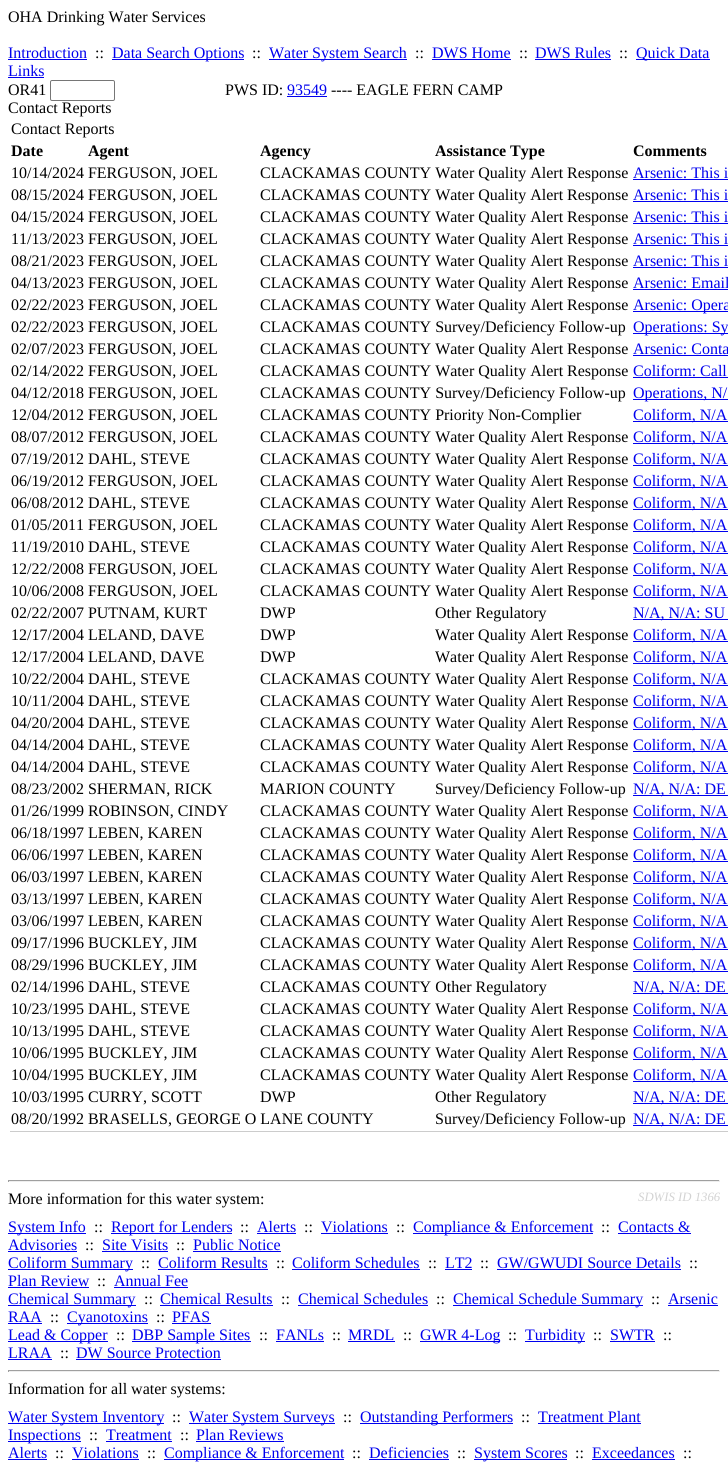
#include <cairo.h>
#include <math.h>
#include <stddef.h>

typedef struct { const char *family; double size; int italic, bold; unsigned color; } style_t;
static cairo_t *ctx;

static void ink(unsigned color) {
    cairo_set_source_rgb(ctx, (color >> 16) / 255.0, (color >> 8 & 255) / 255.0, (color & 255) / 255.0);
}

static void write(double x, double y, const char *s, const style_t *st) {
    cairo_select_font_face(ctx, st->family, st->italic ? CAIRO_FONT_SLANT_ITALIC : CAIRO_FONT_SLANT_NORMAL,
        st->bold ? CAIRO_FONT_WEIGHT_BOLD : CAIRO_FONT_WEIGHT_NORMAL);
    cairo_set_font_size(ctx, st->size);
    ink(st->color);
    cairo_move_to(ctx, x, y);
    cairo_show_text(ctx, s);
}

static void block(double x, double y, double w, double h, unsigned color) {
    ink(color);
    cairo_rectangle(ctx, x, y, w, h);
    cairo_fill(ctx);
}

static void round_path(double x, double y, double w, double h, double r) {
    cairo_new_sub_path(ctx);
    cairo_arc(ctx, x + w - r, y + h - r, r, 0, M_PI / 2);
    cairo_arc(ctx, x + r, y + h - r, r, M_PI / 2, M_PI);
    cairo_arc(ctx, x + r, y + r, r, M_PI, 1.5 * M_PI);
    cairo_arc(ctx, x + w - r, y + r, r, 1.5 * M_PI, 2 * M_PI);
    cairo_close_path(ctx);
}

static const style_t s1 = {"Liberation Serif", 16, 0, 0, 0x000000};
static const style_t s2 = {"Liberation Serif", 16, 0, 0, 0x0000ee};
static const style_t s3 = {"Liberation Serif", 16, 0, 1, 0x000000};
static const style_t s4 = {"Liberation Serif", 12.75, 1, 0, 0xd3d3d3};

int main(void) {
    cairo_surface_t *surface = cairo_image_surface_create(CAIRO_FORMAT_RGB24, 728, 1472);
    ctx = cairo_create(surface);
    cairo_font_options_t *options = cairo_font_options_create();
    cairo_font_options_set_hint_metrics(options, CAIRO_HINT_METRICS_OFF);
    cairo_font_options_set_hint_style(options, CAIRO_HINT_STYLE_NONE);
    cairo_set_font_options(ctx, options);
    cairo_set_miter_limit(ctx, 4);
    ink(0xffffff);
    cairo_paint(ctx);
    write(8, 22, "OHA Drinking Water Services", &s1);
    write(8, 58, "Introduction", &s2);
    block(8, 59, 79, 1, 0x0000ee);
    write(95, 58, "::", &s1);
    block(112, 59, 132, 1, 0x0000ee);
    write(112, 58, "Data Search Options", &s2);
    write(252, 58, "::", &s1);
    block(269, 59, 138, 1, 0x0000ee);
    write(269, 58, "Water System Search", &s2);
    write(415, 58, "::", &s1);
    write(432, 58, "DWS Home", &s2);
    block(432, 59, 79, 1, 0x0000ee);
    write(519, 58, "::", &s1);
    write(535, 58, "DWS Rules", &s2);
    block(535, 59, 76, 1, 0x0000ee);
    write(619, 58, "::", &s1);
    block(636, 59, 74, 1, 0x0000ee);
    write(636, 58, "Quick Data", &s2);
    write(8, 76, "Links", &s2);
    block(8, 77, 36, 1, 0x0000ee);
    write(8, 95, "OR41", &s1);
    round_path(50.5, 80.5, 64, 20, 1.5);
    ink(0x767676);
    cairo_set_line_width(ctx, 1);
    cairo_stroke(ctx);
    write(225, 95, "PWS ID:", &s1);
    write(287, 95, "93549", &s2);
    block(287, 96, 40, 1, 0x0000ee);
    write(331, 95, "---- EAGLE FERN CAMP", &s1);
    write(8, 113, "Contact Reports", &s1);
    write(11, 134, "Contact Reports", &s1);
    write(11, 156, "Date", &s3);
    write(88, 156, "Agent", &s3);
    write(260, 156, "Agency", &s3);
    write(435, 156, "Assistance Type", &s3);
    write(633, 156, "Comments", &s3);
    write(11, 178, "10/14/2024 FERGUSON, JOEL", &s1);
    write(260, 178, "CLACKAMAS COUNTY Water Quality Alert Response", &s1);
    write(633, 178, "Arsenic: This i", &s2);
    block(633, 179, 95, 1, 0x0000ee);
    write(11, 200, "08/15/2024 FERGUSON, JOEL", &s1);
    write(260, 200, "CLACKAMAS COUNTY Water Quality Alert Response", &s1);
    write(633, 200, "Arsenic: This i", &s2);
    block(633, 201, 95, 1, 0x0000ee);
    write(11, 222, "04/15/2024 FERGUSON, JOEL", &s1);
    write(260, 222, "CLACKAMAS COUNTY Water Quality Alert Response", &s1);
    write(633, 222, "Arsenic: This i", &s2);
    block(633, 223, 95, 1, 0x0000ee);
    write(11, 244, "11/13/2023 FERGUSON, JOEL", &s1);
    write(260, 244, "CLACKAMAS COUNTY Water Quality Alert Response", &s1);
    write(633, 244, "Arsenic: This i", &s2);
    block(633, 245, 95, 1, 0x0000ee);
    write(11, 266, "08/21/2023 FERGUSON, JOEL", &s1);
    write(260, 266, "CLACKAMAS COUNTY Water Quality Alert Response", &s1);
    write(633, 266, "Arsenic: This i", &s2);
    block(633, 267, 95, 1, 0x0000ee);
    write(11, 288, "04/13/2023 FERGUSON, JOEL", &s1);
    write(260, 288, "CLACKAMAS COUNTY Water Quality Alert Response", &s1);
    write(633, 288, "Arsenic: Email", &s2);
    block(633, 289, 95, 1, 0x0000ee);
    write(11, 310, "02/22/2023 FERGUSON, JOEL", &s1);
    write(260, 310, "CLACKAMAS COUNTY Water Quality Alert Response", &s1);
    block(633, 311, 95, 1, 0x0000ee);
    write(633, 310, "Arsenic: Opera", &s2);
    write(11, 332, "02/22/2023 FERGUSON, JOEL", &s1);
    write(260, 332, "CLACKAMAS COUNTY Survey/Deficiency Follow-up", &s1);
    block(633, 333, 95, 1, 0x0000ee);
    write(633, 332, "Operations: Sy", &s2);
    write(11, 354, "02/07/2023 FERGUSON, JOEL", &s1);
    write(260, 354, "CLACKAMAS COUNTY Water Quality Alert Response", &s1);
    write(633, 354, "Arsenic: Conta", &s2);
    block(633, 355, 95, 1, 0x0000ee);
    write(11, 376, "02/14/2022 FERGUSON, JOEL", &s1);
    write(260, 376, "CLACKAMAS COUNTY Water Quality Alert Response", &s1);
    write(633, 376, "Coliform: Call", &s2);
    block(633, 377, 95, 1, 0x0000ee);
    write(11, 398, "04/12/2018 FERGUSON, JOEL", &s1);
    write(260, 398, "CLACKAMAS COUNTY Survey/Deficiency Follow-up", &s1);
    block(633, 399, 95, 1, 0x0000ee);
    write(633, 398, "Operations, N/", &s2);
    write(11, 420, "12/04/2012 FERGUSON, JOEL", &s1);
    write(260, 420, "CLACKAMAS COUNTY Priority Non-Complier", &s1);
    block(633, 421, 95, 1, 0x0000ee);
    write(633, 420, "Coliform, N/A", &s2);
    write(11, 442, "08/07/2012 FERGUSON, JOEL", &s1);
    write(260, 442, "CLACKAMAS COUNTY Water Quality Alert Response", &s1);
    block(633, 443, 95, 1, 0x0000ee);
    write(633, 442, "Coliform, N/A", &s2);
    write(11, 464, "07/19/2012 DAHL, STEVE", &s1);
    write(260, 464, "CLACKAMAS COUNTY Water Quality Alert Response", &s1);
    block(633, 465, 95, 1, 0x0000ee);
    write(633, 464, "Coliform, N/A", &s2);
    write(11, 486, "06/19/2012 FERGUSON, JOEL", &s1);
    write(260, 486, "CLACKAMAS COUNTY Water Quality Alert Response", &s1);
    block(633, 487, 95, 1, 0x0000ee);
    write(633, 486, "Coliform, N/A", &s2);
    write(11, 508, "06/08/2012 DAHL, STEVE", &s1);
    write(260, 508, "CLACKAMAS COUNTY Water Quality Alert Response", &s1);
    block(633, 509, 95, 1, 0x0000ee);
    write(633, 508, "Coliform, N/A", &s2);
    write(11, 530, "01/05/2011 FERGUSON, JOEL", &s1);
    write(260, 530, "CLACKAMAS COUNTY Water Quality Alert Response", &s1);
    block(633, 531, 95, 1, 0x0000ee);
    write(633, 530, "Coliform, N/A", &s2);
    write(11, 552, "11/19/2010 DAHL, STEVE", &s1);
    write(260, 552, "CLACKAMAS COUNTY Water Quality Alert Response", &s1);
    block(633, 553, 95, 1, 0x0000ee);
    write(633, 552, "Coliform, N/A", &s2);
    write(11, 574, "12/22/2008 FERGUSON, JOEL", &s1);
    write(260, 574, "CLACKAMAS COUNTY Water Quality Alert Response", &s1);
    block(633, 575, 95, 1, 0x0000ee);
    write(633, 574, "Coliform, N/A", &s2);
    write(11, 596, "10/06/2008 FERGUSON, JOEL", &s1);
    write(260, 596, "CLACKAMAS COUNTY Water Quality Alert Response", &s1);
    block(633, 597, 95, 1, 0x0000ee);
    write(633, 596, "Coliform, N/A", &s2);
    write(11, 618, "02/22/2007 PUTNAM, KURT", &s1);
    write(260, 618, "DWP", &s1);
    write(435, 618, "Other Regulatory", &s1);
    block(633, 619, 95, 1, 0x0000ee);
    write(633, 618, "N/A, N/A: SU", &s2);
    write(11, 640, "12/17/2004 LELAND, DAVE", &s1);
    write(260, 640, "DWP", &s1);
    write(435, 640, "Water Quality Alert Response", &s1);
    block(633, 641, 95, 1, 0x0000ee);
    write(633, 640, "Coliform, N/A", &s2);
    write(11, 662, "12/17/2004 LELAND, DAVE", &s1);
    write(260, 662, "DWP", &s1);
    write(435, 662, "Water Quality Alert Response", &s1);
    block(633, 663, 95, 1, 0x0000ee);
    write(633, 662, "Coliform, N/A", &s2);
    write(11, 684, "10/22/2004 DAHL, STEVE", &s1);
    write(260, 684, "CLACKAMAS COUNTY Water Quality Alert Response", &s1);
    block(633, 685, 95, 1, 0x0000ee);
    write(633, 684, "Coliform, N/A", &s2);
    write(11, 706, "10/11/2004 DAHL, STEVE", &s1);
    write(260, 706, "CLACKAMAS COUNTY Water Quality Alert Response", &s1);
    block(633, 707, 95, 1, 0x0000ee);
    write(633, 706, "Coliform, N/A", &s2);
    write(11, 728, "04/20/2004 DAHL, STEVE", &s1);
    write(260, 728, "CLACKAMAS COUNTY Water Quality Alert Response", &s1);
    block(633, 729, 95, 1, 0x0000ee);
    write(633, 728, "Coliform, N/A", &s2);
    write(11, 750, "04/14/2004 DAHL, STEVE", &s1);
    write(260, 750, "CLACKAMAS COUNTY Water Quality Alert Response", &s1);
    block(633, 751, 95, 1, 0x0000ee);
    write(633, 750, "Coliform, N/A", &s2);
    write(11, 772, "04/14/2004 DAHL, STEVE", &s1);
    write(260, 772, "CLACKAMAS COUNTY Water Quality Alert Response", &s1);
    block(633, 773, 95, 1, 0x0000ee);
    write(633, 772, "Coliform, N/A", &s2);
    write(11, 794, "08/23/2002 SHERMAN, RICK", &s1);
    write(260, 794, "MARION COUNTY", &s1);
    write(435, 794, "Survey/Deficiency Follow-up", &s1);
    block(633, 795, 95, 1, 0x0000ee);
    write(633, 794, "N/A, N/A: DE", &s2);
    write(11, 816, "01/26/1999 ROBINSON, CINDY", &s1);
    write(260, 816, "CLACKAMAS COUNTY Water Quality Alert Response", &s1);
    block(633, 817, 95, 1, 0x0000ee);
    write(633, 816, "Coliform, N/A", &s2);
    write(11, 838, "06/18/1997 LEBEN, KAREN", &s1);
    write(260, 838, "CLACKAMAS COUNTY Water Quality Alert Response", &s1);
    block(633, 839, 95, 1, 0x0000ee);
    write(633, 838, "Coliform, N/A", &s2);
    write(11, 860, "06/06/1997 LEBEN, KAREN", &s1);
    write(260, 860, "CLACKAMAS COUNTY Water Quality Alert Response", &s1);
    block(633, 861, 95, 1, 0x0000ee);
    write(633, 860, "Coliform, N/A", &s2);
    write(11, 882, "06/03/1997 LEBEN, KAREN", &s1);
    write(260, 882, "CLACKAMAS COUNTY Water Quality Alert Response", &s1);
    block(633, 883, 95, 1, 0x0000ee);
    write(633, 882, "Coliform, N/A", &s2);
    write(11, 904, "03/13/1997 LEBEN, KAREN", &s1);
    write(260, 904, "CLACKAMAS COUNTY Water Quality Alert Response", &s1);
    block(633, 905, 95, 1, 0x0000ee);
    write(633, 904, "Coliform, N/A", &s2);
    write(11, 926, "03/06/1997 LEBEN, KAREN", &s1);
    write(260, 926, "CLACKAMAS COUNTY Water Quality Alert Response", &s1);
    block(633, 927, 95, 1, 0x0000ee);
    write(633, 926, "Coliform, N/A", &s2);
    write(11, 948, "09/17/1996 BUCKLEY, JIM", &s1);
    write(260, 948, "CLACKAMAS COUNTY Water Quality Alert Response", &s1);
    block(633, 949, 95, 1, 0x0000ee);
    write(633, 948, "Coliform, N/A", &s2);
    write(11, 970, "08/29/1996 BUCKLEY, JIM", &s1);
    write(260, 970, "CLACKAMAS COUNTY Water Quality Alert Response", &s1);
    block(633, 971, 95, 1, 0x0000ee);
    write(633, 970, "Coliform, N/A", &s2);
    write(11, 992, "02/14/1996 DAHL, STEVE", &s1);
    write(260, 992, "CLACKAMAS COUNTY Other Regulatory", &s1);
    block(633, 993, 95, 1, 0x0000ee);
    write(633, 992, "N/A, N/A: DE", &s2);
    write(11, 1014, "10/23/1995 DAHL, STEVE", &s1);
    write(260, 1014, "CLACKAMAS COUNTY Water Quality Alert Response", &s1);
    block(633, 1015, 95, 1, 0x0000ee);
    write(633, 1014, "Coliform, N/A", &s2);
    write(11, 1036, "10/13/1995 DAHL, STEVE", &s1);
    write(260, 1036, "CLACKAMAS COUNTY Water Quality Alert Response", &s1);
    block(633, 1037, 95, 1, 0x0000ee);
    write(633, 1036, "Coliform, N/A", &s2);
    write(11, 1058, "10/06/1995 BUCKLEY, JIM", &s1);
    write(260, 1058, "CLACKAMAS COUNTY Water Quality Alert Response", &s1);
    block(633, 1059, 95, 1, 0x0000ee);
    write(633, 1058, "Coliform, N/A", &s2);
    write(11, 1080, "10/04/1995 BUCKLEY, JIM", &s1);
    write(260, 1080, "CLACKAMAS COUNTY Water Quality Alert Response", &s1);
    block(633, 1081, 95, 1, 0x0000ee);
    write(633, 1080, "Coliform, N/A", &s2);
    write(11, 1102, "10/03/1995 CURRY, SCOTT", &s1);
    write(260, 1102, "DWP", &s1);
    write(435, 1102, "Other Regulatory", &s1);
    block(633, 1103, 95, 1, 0x0000ee);
    write(633, 1102, "N/A, N/A: DE", &s2);
    write(11, 1124, "08/20/1992 BRASELLS, GEORGE O LANE COUNTY", &s1);
    write(435, 1124, "Survey/Deficiency Follow-up", &s1);
    block(633, 1125, 95, 1, 0x0000ee);
    write(633, 1124, "N/A, N/A: DE", &s2);
    block(10, 1131, 718, 1, 0xcccccc);
    block(8, 1180, 712, 1, 0x9f9f9f);
    block(719, 1180, 1, 2, 0xeeeeee);
    block(8, 1181, 712, 1, 0xeeeeee);
    block(8, 1180, 1, 2, 0x9f9f9f);
    write(8, 1204, "More information for this water system:", &s1);
    write(638, 1201, "SDWIS ID 1366", &s4);
    block(8, 1233, 78, 1, 0x0000ee);
    write(8, 1232, "System Info", &s2);
    write(94, 1232, "::", &s1);
    block(111, 1233, 121, 1, 0x0000ee);
    write(111, 1232, "Report for Lenders", &s2);
    write(240, 1232, "::", &s1);
    write(257, 1232, "Alerts", &s2);
    block(257, 1233, 39, 1, 0x0000ee);
    write(304, 1232, "::", &s1);
    write(321, 1232, "Violations", &s2);
    block(321, 1233, 67, 1, 0x0000ee);
    write(396, 1232, "::", &s1);
    block(413, 1233, 180, 1, 0x0000ee);
    write(413, 1232, "Compliance & Enforcement", &s2);
    write(601, 1232, "::", &s1);
    write(618, 1232, "Contacts &", &s2);
    block(618, 1233, 73, 1, 0x0000ee);
    write(8, 1250, "Advisories", &s2);
    block(8, 1251, 69, 1, 0x0000ee);
    write(85, 1250, "::", &s1);
    write(102, 1250, "Site Visits", &s2);
    block(102, 1251, 66, 1, 0x0000ee);
    write(176, 1250, "::", &s1);
    write(193, 1250, "Public Notice", &s2);
    block(193, 1251, 88, 1, 0x0000ee);
    block(8, 1269, 125, 1, 0x0000ee);
    write(8, 1268, "Coliform Summary", &s2);
    write(141, 1268, "::", &s1);
    write(158, 1268, "Coliform Results", &s2);
    block(158, 1269, 110, 1, 0x0000ee);
    write(276, 1268, "::", &s1);
    write(292, 1268, "Coliform Schedules", &s2);
    block(292, 1269, 128, 1, 0x0000ee);
    write(428, 1268, "::", &s1);
    write(445, 1268, "LT2", &s2);
    block(445, 1269, 27, 1, 0x0000ee);
    write(480, 1268, "::", &s1);
    write(497, 1268, "GW/GWUDI Source Details", &s2);
    block(497, 1269, 184, 1, 0x0000ee);
    write(689, 1268, "::", &s1);
    write(8, 1286, "Plan Review", &s2);
    block(8, 1287, 81, 1, 0x0000ee);
    write(97, 1286, "::", &s1);
    write(114, 1286, "Annual Fee", &s2);
    block(114, 1287, 74, 1, 0x0000ee);
    block(8, 1305, 128, 1, 0x0000ee);
    write(8, 1304, "Chemical Summary", &s2);
    write(144, 1304, "::", &s1);
    write(160, 1304, "Chemical Results", &s2);
    block(160, 1305, 113, 1, 0x0000ee);
    write(281, 1304, "::", &s1);
    write(298, 1304, "Chemical Schedules", &s2);
    block(298, 1305, 130, 1, 0x0000ee);
    write(436, 1304, "::", &s1);
    block(453, 1305, 190, 1, 0x0000ee);
    write(453, 1304, "Chemical Schedule Summary", &s2);
    write(651, 1304, "::", &s1);
    write(668, 1304, "Arsenic", &s2);
    block(668, 1305, 50, 1, 0x0000ee);
    write(8, 1322, "RAA", &s2);
    block(8, 1323, 34, 1, 0x0000ee);
    write(50, 1322, "::", &s1);
    block(67, 1323, 81, 1, 0x0000ee);
    write(67, 1322, "Cyanotoxins", &s2);
    write(156, 1322, "::", &s1);
    write(172, 1322, "PFAS", &s2);
    block(172, 1323, 39, 1, 0x0000ee);
    block(8, 1341, 100, 1, 0x0000ee);
    write(8, 1340, "Lead & Copper", &s2);
    write(116, 1340, "::", &s1);
    block(132, 1341, 119, 1, 0x0000ee);
    write(132, 1340, "DBP Sample Sites", &s2);
    write(259, 1340, "::", &s1);
    write(276, 1340, "FANLs", &s2);
    block(276, 1341, 48, 1, 0x0000ee);
    write(332, 1340, "::", &s1);
    write(348, 1340, "MRDL", &s2);
    block(348, 1341, 47, 1, 0x0000ee);
    write(403, 1340, "::", &s1);
    block(420, 1341, 80, 1, 0x0000ee);
    write(420, 1340, "GWR 4-Log", &s2);
    write(508, 1340, "::", &s1);
    block(525, 1341, 60, 1, 0x0000ee);
    write(525, 1340, "Turbidity", &s2);
    write(593, 1340, "::", &s1);
    write(610, 1340, "SWTR", &s2);
    block(610, 1341, 45, 1, 0x0000ee);
    write(663, 1340, "::", &s1);
    write(8, 1358, "LRAA", &s2);
    block(8, 1359, 44, 1, 0x0000ee);
    write(60, 1358, "::", &s1);
    write(76, 1358, "DW Source Protection", &s2);
    block(76, 1359, 145, 1, 0x0000ee);
    block(8, 1370, 712, 1, 0x9f9f9f);
    block(719, 1370, 1, 2, 0xeeeeee);
    block(8, 1371, 712, 1, 0xeeeeee);
    block(8, 1370, 1, 2, 0x9f9f9f);
    write(8, 1394, "Information for all water systems:", &s1);
    block(8, 1423, 156, 1, 0x0000ee);
    write(8, 1422, "Water System Inventory", &s2);
    write(172, 1422, "::", &s1);
    block(189, 1423, 146, 1, 0x0000ee);
    write(189, 1422, "Water System Surveys", &s2);
    write(343, 1422, "::", &s1);
    block(360, 1423, 153, 1, 0x0000ee);
    write(360, 1422, "Outstanding Performers", &s2);
    write(521, 1422, "::", &s1);
    write(538, 1422, "Treatment Plant", &s2);
    block(538, 1423, 103, 1, 0x0000ee);
    block(8, 1441, 73, 1, 0x0000ee);
    write(8, 1440, "Inspections", &s2);
    write(89, 1440, "::", &s1);
    write(106, 1440, "Treatment", &s2);
    block(106, 1441, 66, 1, 0x0000ee);
    write(180, 1440, "::", &s1);
    write(196, 1440, "Plan Reviews", &s2);
    block(196, 1441, 88, 1, 0x0000ee);
    write(8, 1458, "Alerts", &s2);
    block(8, 1459, 39, 1, 0x0000ee);
    write(55, 1458, "::", &s1);
    write(72, 1458, "Violations", &s2);
    block(72, 1459, 67, 1, 0x0000ee);
    write(147, 1458, "::", &s1);
    block(164, 1459, 180, 1, 0x0000ee);
    write(164, 1458, "Compliance & Enforcement", &s2);
    write(352, 1458, "::", &s1);
    write(369, 1458, "Deficiencies", &s2);
    block(369, 1459, 80, 1, 0x0000ee);
    write(457, 1458, "::", &s1);
    block(474, 1459, 93, 1, 0x0000ee);
    write(474, 1458, "System Scores", &s2);
    write(575, 1458, "::", &s1);
    write(592, 1458, "Exceedances", &s2);
    block(592, 1459, 83, 1, 0x0000ee);
    write(683, 1458, "::", &s1);
    cairo_surface_write_to_png(surface, "screenshot.png");
    cairo_font_options_destroy(options);
    cairo_destroy(ctx);
    cairo_surface_destroy(surface);
    return 0;
}
